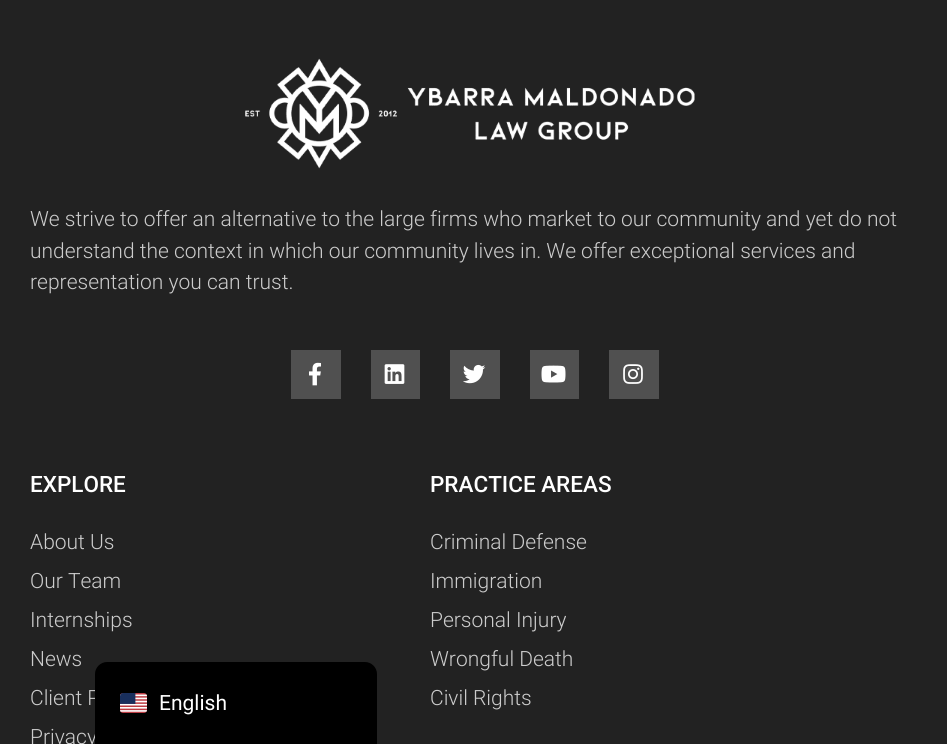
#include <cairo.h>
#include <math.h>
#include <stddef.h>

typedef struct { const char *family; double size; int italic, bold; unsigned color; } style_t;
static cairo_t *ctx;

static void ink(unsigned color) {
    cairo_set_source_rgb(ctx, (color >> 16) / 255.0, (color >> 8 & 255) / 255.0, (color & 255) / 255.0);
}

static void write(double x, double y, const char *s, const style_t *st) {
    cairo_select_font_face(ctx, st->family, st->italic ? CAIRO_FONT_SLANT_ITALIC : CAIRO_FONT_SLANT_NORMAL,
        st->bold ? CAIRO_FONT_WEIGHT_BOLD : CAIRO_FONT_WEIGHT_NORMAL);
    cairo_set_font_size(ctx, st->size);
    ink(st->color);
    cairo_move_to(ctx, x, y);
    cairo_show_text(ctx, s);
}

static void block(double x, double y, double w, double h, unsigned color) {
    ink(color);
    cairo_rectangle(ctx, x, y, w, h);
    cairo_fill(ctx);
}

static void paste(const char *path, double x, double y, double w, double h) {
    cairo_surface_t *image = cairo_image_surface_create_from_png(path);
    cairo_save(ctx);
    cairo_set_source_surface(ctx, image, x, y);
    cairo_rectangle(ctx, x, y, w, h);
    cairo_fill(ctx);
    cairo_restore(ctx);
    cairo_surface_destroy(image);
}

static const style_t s1 = {"Roboto Light", 21, 0, 0, 0xcccccc};
static const style_t s2 = {"Roboto Medium", 22.5, 0, 0, 0xffffff};
static const style_t s3 = {"Roboto", 21, 0, 0, 0xffffff};

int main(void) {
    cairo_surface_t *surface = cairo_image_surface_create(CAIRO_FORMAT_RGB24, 947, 744);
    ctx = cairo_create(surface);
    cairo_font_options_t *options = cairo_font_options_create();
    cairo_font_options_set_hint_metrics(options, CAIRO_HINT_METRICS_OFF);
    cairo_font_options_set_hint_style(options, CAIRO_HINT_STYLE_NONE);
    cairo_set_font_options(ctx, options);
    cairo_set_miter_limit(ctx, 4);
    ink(0x222222);
    cairo_paint(ctx);
    paste("pic1.png", 245, 58, 450, 111);
    write(30, 226, "We strive to offer an alternative to the large firms who market to our community and yet do not", &s1);
    write(30, 258, "understand the context in which our community lives in. We offer exceptional services and", &s1);
    write(30, 289, "representation you can trust.", &s1);
    block(291, 350, 50, 49, 0x505050);
    paste("pic2.png", 309, 362, 12, 24);
    block(371, 350, 49, 49, 0x505050);
    paste("pic3.png", 384, 364, 21, 20);
    block(450, 350, 50, 49, 0x505050);
    paste("pic4.png", 463, 364, 23, 20);
    block(530, 350, 49, 49, 0x505050);
    paste("pic5.png", 541, 365, 25, 18);
    block(609, 350, 50, 49, 0x505050);
    paste("pic6.png", 623, 364, 20, 20);
    write(30, 492, "EXPLORE", &s2);
    write(30, 549, "About Us", &s1);
    write(30, 588, "Our Team", &s1);
    write(30, 627, "Internships", &s1);
    write(30, 666, "News", &s1);
    write(30, 705, "Client P", &s1);
    write(30, 744, "Privacy", &s1);
    write(430, 492, "PRACTICE AREAS", &s2);
    write(430, 549, "Criminal Defense", &s1);
    write(430, 588, "Immigration", &s1);
    write(430, 627, "Personal Injury", &s1);
    write(430, 666, "Wrongful Death", &s1);
    write(430, 705, "Civil Rights", &s1);
    ink(0x000000);
    cairo_new_path(ctx);
    cairo_move_to(ctx, 107, 662);
    cairo_line_to(ctx, 365, 662);
    cairo_curve_to(ctx, 371.5, 662, 377, 667.5, 377, 674);
    cairo_line_to(ctx, 377, 744);
    cairo_line_to(ctx, 95, 744);
    cairo_line_to(ctx, 95, 674);
    cairo_curve_to(ctx, 95, 667.5, 100.5, 662, 107, 662);
    cairo_close_path(ctx);
    cairo_fill(ctx);
    paste("pic7.png", 120, 693, 27, 20);
    write(159, 710, "English", &s3);
    cairo_surface_write_to_png(surface, "screenshot.png");
    cairo_font_options_destroy(options);
    cairo_destroy(ctx);
    cairo_surface_destroy(surface);
    return 0;
}
